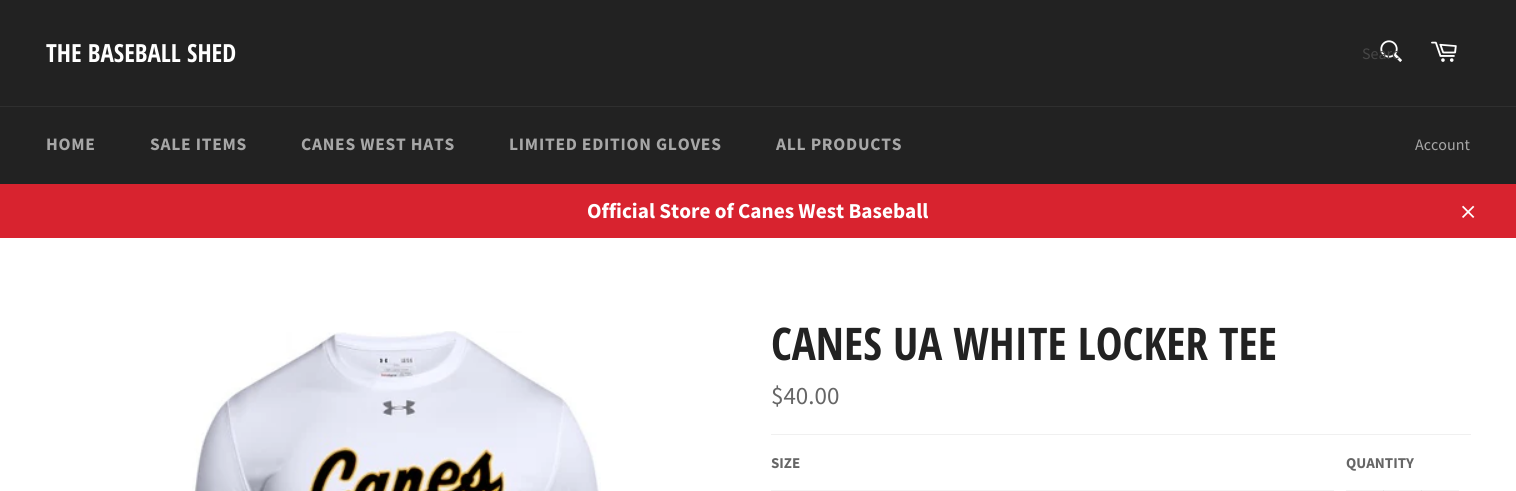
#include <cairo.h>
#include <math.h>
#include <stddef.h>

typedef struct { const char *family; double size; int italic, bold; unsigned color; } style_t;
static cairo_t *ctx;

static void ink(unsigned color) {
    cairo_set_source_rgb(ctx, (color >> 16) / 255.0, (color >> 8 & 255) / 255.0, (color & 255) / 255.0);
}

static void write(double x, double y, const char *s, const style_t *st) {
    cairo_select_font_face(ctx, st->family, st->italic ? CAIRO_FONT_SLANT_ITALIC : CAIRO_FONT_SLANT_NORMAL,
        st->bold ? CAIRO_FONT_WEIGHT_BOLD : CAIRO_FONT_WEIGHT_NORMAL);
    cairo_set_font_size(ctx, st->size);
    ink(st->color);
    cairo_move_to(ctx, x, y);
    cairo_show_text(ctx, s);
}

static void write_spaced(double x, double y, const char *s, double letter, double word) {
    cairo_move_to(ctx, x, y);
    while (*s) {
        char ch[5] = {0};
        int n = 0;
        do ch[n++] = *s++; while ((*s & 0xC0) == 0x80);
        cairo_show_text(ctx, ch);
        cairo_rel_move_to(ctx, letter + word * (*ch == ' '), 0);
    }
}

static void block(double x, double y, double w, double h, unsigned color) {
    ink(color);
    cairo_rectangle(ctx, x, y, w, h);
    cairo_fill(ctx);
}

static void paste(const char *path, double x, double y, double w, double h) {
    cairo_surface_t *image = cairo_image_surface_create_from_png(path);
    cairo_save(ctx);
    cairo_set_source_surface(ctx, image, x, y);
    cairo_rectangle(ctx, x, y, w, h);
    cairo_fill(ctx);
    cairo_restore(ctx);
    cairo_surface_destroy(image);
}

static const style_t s1 = {"Open Sans Condensed", 25, 0, 1, 0xffffff};
static const style_t s2 = {"Source Sans Pro", 16, 0, 0, 0x464646};
static const style_t s3 = {"Source Sans Pro", 16, 0, 0, 0xa7a7a7};
static const style_t s4 = {"Source Sans Pro", 21.25, 0, 1, 0xffffff};
static const style_t s5 = {"Open Sans Condensed", 45, 0, 1, 0x222222};
static const style_t s6 = {"Source Sans Pro", 25, 0, 0, 0x666666};
static const style_t s7 = {"Source Sans Pro", 15, 0, 1, 0x666666};

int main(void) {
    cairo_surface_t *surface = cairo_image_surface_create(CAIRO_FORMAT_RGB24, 1516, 491);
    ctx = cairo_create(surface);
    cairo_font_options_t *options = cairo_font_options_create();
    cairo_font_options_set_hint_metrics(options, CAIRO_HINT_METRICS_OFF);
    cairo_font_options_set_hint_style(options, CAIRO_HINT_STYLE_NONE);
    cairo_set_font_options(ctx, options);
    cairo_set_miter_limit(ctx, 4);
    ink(0x222222);
    cairo_paint(ctx);
    write(46, 62, "THE BASEBALL SHED", &s1);
    paste("pic1.png", 1380, 40, 22, 22);
    write(1362, 59, "Searc", &s2);
    paste("pic2.png", 1431, 41, 26, 21);
    block(0, 106, 1516, 1, 0x2f2f2f);
    cairo_select_font_face(ctx, "Source Sans Pro", CAIRO_FONT_SLANT_NORMAL, CAIRO_FONT_WEIGHT_BOLD);
    cairo_set_font_size(ctx, 17.5);
    ink(0xa7a7a7);
    write_spaced(46, 150, "HOME", 0.75, 0);
    write_spaced(150, 150, "SALE ITEMS", 0.75, 0);
    write_spaced(301, 150, "CANES WEST HATS", 0.75, 0);
    write_spaced(509, 150, "LIMITED EDITION GLOVES", 0.75, 0);
    write_spaced(776, 150, "ALL PRODUCTS", 0.75, 0);
    write(1415, 150, "Account", &s3);
    block(0, 184, 1516, 54, 0xd8232f);
    write(587, 218, "Official Store of Canes West Baseball", &s4);
    paste("pic3.png", 1462, 205, 13, 13);
    block(0, 238, 1516, 253, 0xffffff);
    paste("pic4.png", 192, 331, 409, 160);
    write(771, 360, "CANES UA WHITE LOCKER TEE", &s5);
    write(771, 404, "$40.00", &s6);
    block(771, 434, 700, 1, 0xf0f0f0);
    write(771, 468, "SIZE", &s7);
    block(771, 490, 563, 1, 0xf4f4f4);
    write(1346, 468, "QUANTITY", &s7);
    block(1346, 490, 113, 1, 0xf4f4f4);
    block(1383, 490, 1, 1, 0xe7e7e7);
    block(1421, 490, 1, 1, 0xe7e7e7);
    cairo_surface_write_to_png(surface, "screenshot.png");
    cairo_font_options_destroy(options);
    cairo_destroy(ctx);
    cairo_surface_destroy(surface);
    return 0;
}
